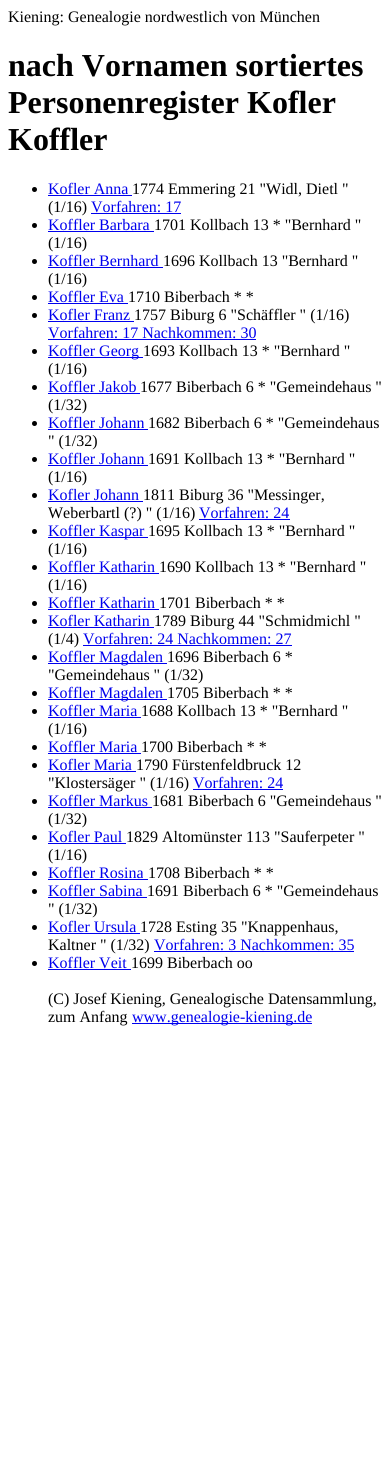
#include <cairo.h>
#include <math.h>
#include <stddef.h>

typedef struct { const char *family; double size; int italic, bold; unsigned color; } style_t;
static cairo_t *ctx;

static void ink(unsigned color) {
    cairo_set_source_rgb(ctx, (color >> 16) / 255.0, (color >> 8 & 255) / 255.0, (color & 255) / 255.0);
}

static void write(double x, double y, const char *s, const style_t *st) {
    cairo_select_font_face(ctx, st->family, st->italic ? CAIRO_FONT_SLANT_ITALIC : CAIRO_FONT_SLANT_NORMAL,
        st->bold ? CAIRO_FONT_WEIGHT_BOLD : CAIRO_FONT_WEIGHT_NORMAL);
    cairo_set_font_size(ctx, st->size);
    ink(st->color);
    cairo_move_to(ctx, x, y);
    cairo_show_text(ctx, s);
}

static void block(double x, double y, double w, double h, unsigned color) {
    ink(color);
    cairo_rectangle(ctx, x, y, w, h);
    cairo_fill(ctx);
}

static const style_t s1 = {"Liberation Serif", 16, 0, 0, 0x000000};
static const style_t s2 = {"Liberation Serif", 32, 0, 1, 0x000000};
static const style_t s3 = {"Liberation Serif", 16, 0, 0, 0x0000ee};

int main(void) {
    cairo_surface_t *surface = cairo_image_surface_create(CAIRO_FORMAT_RGB24, 391, 1472);
    ctx = cairo_create(surface);
    cairo_font_options_t *options = cairo_font_options_create();
    cairo_font_options_set_hint_metrics(options, CAIRO_HINT_METRICS_OFF);
    cairo_font_options_set_hint_style(options, CAIRO_HINT_STYLE_NONE);
    cairo_set_font_options(ctx, options);
    cairo_set_miter_limit(ctx, 4);
    ink(0xffffff);
    cairo_paint(ctx);
    write(8, 22, "Kiening: Genealogie nordwestlich von München", &s1);
    write(8, 76, "nach Vornamen sortiertes", &s2);
    write(8, 113, "Personenregister Kofler", &s2);
    write(8, 150, "Koffler", &s2);
    cairo_new_path(ctx);
    cairo_arc(ctx, 34.5, 189.5, 2.5, 0, 2 * M_PI);
    cairo_fill(ctx);
    write(48, 194, "Kofler Anna", &s3);
    block(48, 195, 84, 1, 0x0000ee);
    write(132, 194, "1774 Emmering 21 \"Widl, Dietl \"", &s1);
    write(48, 212, "(1/16)", &s1);
    write(91, 212, "Vorfahren: 17", &s3);
    block(91, 213, 90, 1, 0x0000ee);
    ink(0x000000);
    cairo_new_path(ctx);
    cairo_arc(ctx, 34.5, 225.5, 2.5, 0, 2 * M_PI);
    cairo_fill(ctx);
    write(48, 230, "Koffler Barbara", &s3);
    block(48, 231, 106, 1, 0x0000ee);
    write(154, 230, "1701 Kollbach 13 * \"Bernhard \"", &s1);
    write(48, 248, "(1/16)", &s1);
    cairo_new_path(ctx);
    cairo_arc(ctx, 34.5, 261.5, 2.5, 0, 2 * M_PI);
    cairo_fill(ctx);
    write(48, 266, "Koffler Bernhard", &s3);
    block(48, 267, 115, 1, 0x0000ee);
    write(163, 266, "1696 Kollbach 13 \"Bernhard \"", &s1);
    write(48, 284, "(1/16)", &s1);
    cairo_new_path(ctx);
    cairo_arc(ctx, 34.5, 297.5, 2.5, 0, 2 * M_PI);
    cairo_fill(ctx);
    write(48, 302, "Koffler Eva", &s3);
    block(48, 303, 80, 1, 0x0000ee);
    write(128, 302, "1710 Biberbach * *", &s1);
    cairo_new_path(ctx);
    cairo_arc(ctx, 34.5, 315.5, 2.5, 0, 2 * M_PI);
    cairo_fill(ctx);
    write(48, 320, "Kofler Franz", &s3);
    block(48, 321, 86, 1, 0x0000ee);
    write(134, 320, "1757 Biburg 6 \"Schäffler \" (1/16)", &s1);
    write(48, 338, "Vorfahren: 17 Nachkommen: 30", &s3);
    block(48, 339, 208, 1, 0x0000ee);
    ink(0x000000);
    cairo_new_path(ctx);
    cairo_arc(ctx, 34.5, 351.5, 2.5, 0, 2 * M_PI);
    cairo_fill(ctx);
    block(48, 357, 95, 1, 0x0000ee);
    write(48, 356, "Koffler Georg", &s3);
    write(143, 356, "1693 Kollbach 13 * \"Bernhard \"", &s1);
    write(48, 374, "(1/16)", &s1);
    cairo_new_path(ctx);
    cairo_arc(ctx, 34.5, 387.5, 2.5, 0, 2 * M_PI);
    cairo_fill(ctx);
    write(48, 392, "Koffler Jakob", &s3);
    block(48, 393, 92, 1, 0x0000ee);
    write(140, 392, "1677 Biberbach 6 * \"Gemeindehaus \"", &s1);
    write(48, 410, "(1/32)", &s1);
    cairo_new_path(ctx);
    cairo_arc(ctx, 34.5, 423.5, 2.5, 0, 2 * M_PI);
    cairo_fill(ctx);
    write(48, 428, "Koffler Johann", &s3);
    block(48, 429, 100, 1, 0x0000ee);
    write(148, 428, "1682 Biberbach 6 * \"Gemeindehaus", &s1);
    write(48, 446, "\" (1/32)", &s1);
    cairo_new_path(ctx);
    cairo_arc(ctx, 34.5, 459.5, 2.5, 0, 2 * M_PI);
    cairo_fill(ctx);
    write(48, 464, "Koffler Johann", &s3);
    block(48, 465, 100, 1, 0x0000ee);
    write(148, 464, "1691 Kollbach 13 * \"Bernhard \"", &s1);
    write(48, 482, "(1/16)", &s1);
    cairo_new_path(ctx);
    cairo_arc(ctx, 34.5, 495.5, 2.5, 0, 2 * M_PI);
    cairo_fill(ctx);
    write(48, 500, "Kofler Johann", &s3);
    block(48, 501, 95, 1, 0x0000ee);
    write(143, 500, "1811 Biburg 36 \"Messinger,", &s1);
    write(48, 518, "Weberbartl (?) \" (1/16)", &s1);
    write(199, 518, "Vorfahren: 24", &s3);
    block(199, 519, 91, 1, 0x0000ee);
    ink(0x000000);
    cairo_new_path(ctx);
    cairo_arc(ctx, 34.5, 531.5, 2.5, 0, 2 * M_PI);
    cairo_fill(ctx);
    block(48, 537, 100, 1, 0x0000ee);
    write(48, 536, "Koffler Kaspar", &s3);
    write(148, 536, "1695 Kollbach 13 * \"Bernhard \"", &s1);
    write(48, 554, "(1/16)", &s1);
    cairo_new_path(ctx);
    cairo_arc(ctx, 34.5, 567.5, 2.5, 0, 2 * M_PI);
    cairo_fill(ctx);
    write(48, 572, "Koffler Katharin", &s3);
    block(48, 573, 111, 1, 0x0000ee);
    write(159, 572, "1690 Kollbach 13 * \"Bernhard \"", &s1);
    write(48, 590, "(1/16)", &s1);
    cairo_new_path(ctx);
    cairo_arc(ctx, 34.5, 603.5, 2.5, 0, 2 * M_PI);
    cairo_fill(ctx);
    write(48, 608, "Koffler Katharin", &s3);
    block(48, 609, 111, 1, 0x0000ee);
    write(159, 608, "1701 Biberbach * *", &s1);
    cairo_new_path(ctx);
    cairo_arc(ctx, 34.5, 621.5, 2.5, 0, 2 * M_PI);
    cairo_fill(ctx);
    write(48, 626, "Kofler Katharin", &s3);
    block(48, 627, 106, 1, 0x0000ee);
    write(154, 626, "1789 Biburg 44 \"Schmidmichl \"", &s1);
    write(48, 644, "(1/4)", &s1);
    write(83, 644, "Vorfahren: 24 Nachkommen: 27", &s3);
    block(83, 645, 209, 1, 0x0000ee);
    ink(0x000000);
    cairo_new_path(ctx);
    cairo_arc(ctx, 34.5, 657.5, 2.5, 0, 2 * M_PI);
    cairo_fill(ctx);
    block(48, 663, 119, 1, 0x0000ee);
    write(48, 662, "Koffler Magdalen", &s3);
    write(167, 662, "1696 Biberbach 6 *", &s1);
    write(48, 680, "\"Gemeindehaus \" (1/32)", &s1);
    cairo_new_path(ctx);
    cairo_arc(ctx, 34.5, 693.5, 2.5, 0, 2 * M_PI);
    cairo_fill(ctx);
    block(48, 699, 119, 1, 0x0000ee);
    write(48, 698, "Koffler Magdalen", &s3);
    write(167, 698, "1705 Biberbach * *", &s1);
    cairo_new_path(ctx);
    cairo_arc(ctx, 34.5, 711.5, 2.5, 0, 2 * M_PI);
    cairo_fill(ctx);
    write(48, 716, "Koffler Maria", &s3);
    block(48, 717, 93, 1, 0x0000ee);
    write(141, 716, "1688 Kollbach 13 * \"Bernhard \"", &s1);
    write(48, 734, "(1/16)", &s1);
    cairo_new_path(ctx);
    cairo_arc(ctx, 34.5, 747.5, 2.5, 0, 2 * M_PI);
    cairo_fill(ctx);
    write(48, 752, "Koffler Maria", &s3);
    block(48, 753, 93, 1, 0x0000ee);
    write(141, 752, "1700 Biberbach * *", &s1);
    cairo_new_path(ctx);
    cairo_arc(ctx, 34.5, 765.5, 2.5, 0, 2 * M_PI);
    cairo_fill(ctx);
    write(48, 770, "Kofler Maria", &s3);
    block(48, 771, 88, 1, 0x0000ee);
    write(136, 770, "1790 Fürstenfeldbruck 12", &s1);
    write(48, 788, "\"Klostersäger \" (1/16)", &s1);
    write(193, 788, "Vorfahren: 24", &s3);
    block(193, 789, 90, 1, 0x0000ee);
    ink(0x000000);
    cairo_new_path(ctx);
    cairo_arc(ctx, 34.5, 801.5, 2.5, 0, 2 * M_PI);
    cairo_fill(ctx);
    write(48, 806, "Koffler Markus", &s3);
    block(48, 807, 104, 1, 0x0000ee);
    write(152, 806, "1681 Biberbach 6 \"Gemeindehaus \"", &s1);
    write(48, 824, "(1/32)", &s1);
    cairo_new_path(ctx);
    cairo_arc(ctx, 34.5, 837.5, 2.5, 0, 2 * M_PI);
    cairo_fill(ctx);
    write(48, 842, "Kofler Paul", &s3);
    block(48, 843, 78, 1, 0x0000ee);
    write(126, 842, "1829 Altomünster 113 \"Sauferpeter \"", &s1);
    write(48, 860, "(1/16)", &s1);
    cairo_new_path(ctx);
    cairo_arc(ctx, 34.5, 873.5, 2.5, 0, 2 * M_PI);
    cairo_fill(ctx);
    write(48, 878, "Koffler Rosina", &s3);
    block(48, 879, 100, 1, 0x0000ee);
    write(148, 878, "1708 Biberbach * *", &s1);
    cairo_new_path(ctx);
    cairo_arc(ctx, 34.5, 891.5, 2.5, 0, 2 * M_PI);
    cairo_fill(ctx);
    write(48, 896, "Koffler Sabina", &s3);
    block(48, 897, 99, 1, 0x0000ee);
    write(147, 896, "1691 Biberbach 6 * \"Gemeindehaus", &s1);
    write(48, 914, "\" (1/32)", &s1);
    cairo_new_path(ctx);
    cairo_arc(ctx, 34.5, 927.5, 2.5, 0, 2 * M_PI);
    cairo_fill(ctx);
    write(48, 932, "Kofler Ursula", &s3);
    block(48, 933, 92, 1, 0x0000ee);
    write(140, 932, "1728 Esting 35 \"Knappenhaus,", &s1);
    write(48, 950, "Kaltner \" (1/32)", &s1);
    write(154, 950, "Vorfahren: 3 Nachkommen: 35", &s3);
    block(154, 951, 200, 1, 0x0000ee);
    ink(0x000000);
    cairo_new_path(ctx);
    cairo_arc(ctx, 34.5, 963.5, 2.5, 0, 2 * M_PI);
    cairo_fill(ctx);
    write(48, 968, "Koffler Veit", &s3);
    block(48, 969, 83, 1, 0x0000ee);
    write(131, 968, "1699 Biberbach oo", &s1);
    write(48, 1004, "(C) Josef Kiening, Genealogische Datensammlung,", &s1);
    write(48, 1022, "zum Anfang", &s1);
    block(132, 1023, 180, 1, 0x0000ee);
    write(132, 1022, "www.genealogie-kiening.de", &s3);
    cairo_surface_write_to_png(surface, "screenshot.png");
    cairo_font_options_destroy(options);
    cairo_destroy(ctx);
    cairo_surface_destroy(surface);
    return 0;
}
